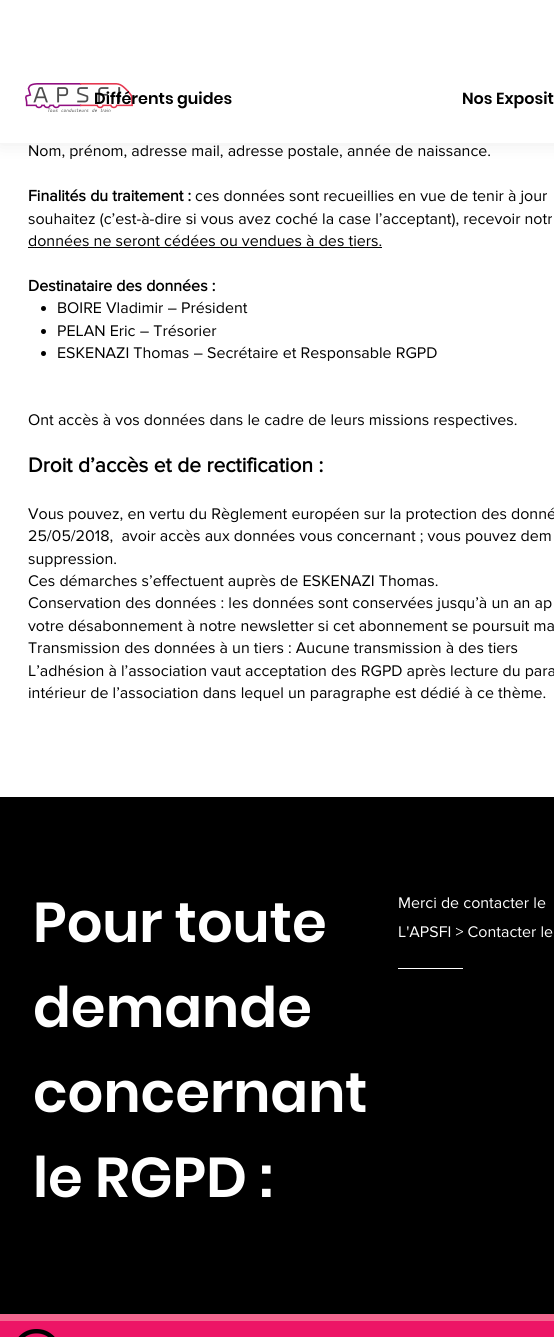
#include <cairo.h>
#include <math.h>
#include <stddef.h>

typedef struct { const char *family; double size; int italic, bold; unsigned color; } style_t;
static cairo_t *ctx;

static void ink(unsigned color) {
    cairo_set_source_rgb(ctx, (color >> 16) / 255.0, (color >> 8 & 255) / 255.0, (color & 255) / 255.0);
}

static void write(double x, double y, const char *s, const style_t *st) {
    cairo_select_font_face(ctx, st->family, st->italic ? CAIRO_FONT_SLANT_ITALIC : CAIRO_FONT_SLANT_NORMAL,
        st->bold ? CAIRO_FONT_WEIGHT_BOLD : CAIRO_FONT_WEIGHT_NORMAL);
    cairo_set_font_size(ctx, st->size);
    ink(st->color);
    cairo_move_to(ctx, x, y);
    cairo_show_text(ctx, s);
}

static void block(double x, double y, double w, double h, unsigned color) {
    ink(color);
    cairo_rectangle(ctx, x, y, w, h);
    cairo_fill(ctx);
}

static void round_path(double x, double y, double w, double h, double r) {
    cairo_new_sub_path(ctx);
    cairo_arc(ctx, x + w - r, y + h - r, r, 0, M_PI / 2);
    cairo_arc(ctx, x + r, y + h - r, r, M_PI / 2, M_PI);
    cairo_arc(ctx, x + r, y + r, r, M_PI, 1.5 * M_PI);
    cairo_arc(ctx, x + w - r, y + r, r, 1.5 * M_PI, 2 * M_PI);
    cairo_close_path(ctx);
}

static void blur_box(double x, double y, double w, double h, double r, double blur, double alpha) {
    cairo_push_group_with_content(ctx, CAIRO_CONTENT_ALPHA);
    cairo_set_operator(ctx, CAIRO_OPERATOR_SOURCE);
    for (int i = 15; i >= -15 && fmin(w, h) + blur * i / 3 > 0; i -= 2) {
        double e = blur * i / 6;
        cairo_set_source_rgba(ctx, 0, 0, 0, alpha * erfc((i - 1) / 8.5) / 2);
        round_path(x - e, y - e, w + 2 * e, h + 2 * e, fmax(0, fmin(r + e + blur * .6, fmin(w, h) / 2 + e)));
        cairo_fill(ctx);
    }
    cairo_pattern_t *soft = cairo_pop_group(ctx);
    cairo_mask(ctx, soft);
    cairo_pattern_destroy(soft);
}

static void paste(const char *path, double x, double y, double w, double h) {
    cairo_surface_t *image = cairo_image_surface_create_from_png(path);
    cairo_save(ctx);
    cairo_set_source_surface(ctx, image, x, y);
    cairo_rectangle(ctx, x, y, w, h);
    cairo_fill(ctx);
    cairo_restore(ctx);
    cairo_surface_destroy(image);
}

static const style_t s1 = {"Poppins SemiBold", 16, 0, 0, 0x000000};
static const style_t s2 = {"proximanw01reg", 16, 0, 0, 0x000000};
static const style_t s3 = {"proximanw01reg", 16, 0, 1, 0x000000};
static const style_t s4 = {"proximanw01reg", 21, 0, 1, 0x000000};
static const style_t s5 = {"Poppins SemiBold", 56, 0, 0, 0xffffff};
static const style_t s6 = {"proximanw01reg", 16, 0, 0, 0xffffff};

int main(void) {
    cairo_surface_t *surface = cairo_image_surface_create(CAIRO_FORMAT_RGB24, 554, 1337);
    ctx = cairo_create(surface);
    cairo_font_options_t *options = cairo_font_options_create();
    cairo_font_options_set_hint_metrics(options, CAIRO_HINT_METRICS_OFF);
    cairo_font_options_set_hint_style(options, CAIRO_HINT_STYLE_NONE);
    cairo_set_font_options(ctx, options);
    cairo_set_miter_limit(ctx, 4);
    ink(0xffffff);
    cairo_paint(ctx);
    ink(0x000000);
    blur_box(0, 0, 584, 141, 0, 10, 0.1);
    block(0, 0, 554, 143, 0xffffff);
    paste("pic1.png", 25, 83, 108, 29);
    write(94, 104, "Différents guides", &s1);
    write(462, 104, "Nos Exposit", &s1);
    write(28, 156, "Nom, prénom, adresse mail, adresse postale, année de naissance.", &s2);
    write(28, 201, "Finalités du traitement :", &s3);
    write(195, 201, "ces données sont recueillies en vue de tenir à jour", &s2);
    write(28, 224, "souhaitez (c’est-à-dire si vous avez coché la case l’acceptant), recevoir notr", &s2);
    write(28, 246, "données ne seront cédées ou vendues à des tiers.", &s2);
    block(28, 247, 354, 1, 0x000000);
    write(28, 291, "Destinataire des données :", &s3);
    cairo_new_path(ctx);
    cairo_arc(ctx, 43.5, 308.5, 2.5, 0, 2 * M_PI);
    cairo_fill(ctx);
    write(57, 313, "BOIRE Vladimir – Président", &s2);
    cairo_new_path(ctx);
    cairo_arc(ctx, 43.5, 331.5, 2.5, 0, 2 * M_PI);
    cairo_fill(ctx);
    write(57, 336, "PELAN Eric – Trésorier", &s2);
    cairo_new_path(ctx);
    cairo_arc(ctx, 43.5, 353.5, 2.5, 0, 2 * M_PI);
    cairo_fill(ctx);
    write(57, 358, "ESKENAZI Thomas – Secrétaire et Responsable RGPD", &s2);
    write(28, 425, "Ont accès à vos données dans le cadre de leurs missions respectives.", &s2);
    write(28, 472, "Droit d’accès et de rectification :", &s4);
    write(28, 519, "Vous pouvez, en vertu du Règlement européen sur la protection des donné", &s2);
    write(28, 541, "25/05/2018,  avoir accès aux données vous concernant ; vous pouvez dem", &s2);
    write(28, 564, "suppression.", &s2);
    write(28, 586, "Ces démarches s’effectuent auprès de ESKENAZI Thomas.", &s2);
    write(28, 608, "Conservation des données : les données sont conservées jusqu’à un an ap", &s2);
    write(28, 631, "votre désabonnement à notre newsletter si cet abonnement se poursuit ma", &s2);
    write(28, 653, "Transmission des données à un tiers : Aucune transmission à des tiers", &s2);
    write(28, 676, "L’adhésion à l’association vaut acceptation des RGPD après lecture du para", &s2);
    write(28, 698, "intérieur de l’association dans lequel un paragraphe est dédié à ce thème.", &s2);
    block(0, 797, 554, 517, 0x000000);
    write(33, 942, "Pour toute", &s5);
    write(33, 1027, "demande", &s5);
    write(33, 1112, "concernant", &s5);
    write(33, 1197, "le RGPD :", &s5);
    write(398, 908, "Merci de contacter le", &s6);
    write(398, 937, "L'APSFI > Contacter le", &s6);
    block(398, 968, 65, 1, 0xffffff);
    block(0, 1321, 554, 16, 0xed1566);
    block(0, 1314, 554, 7, 0xf2668f);
    paste("pic2.png", 18, 1329, 37, 8);
    cairo_surface_write_to_png(surface, "screenshot.png");
    cairo_font_options_destroy(options);
    cairo_destroy(ctx);
    cairo_surface_destroy(surface);
    return 0;
}
